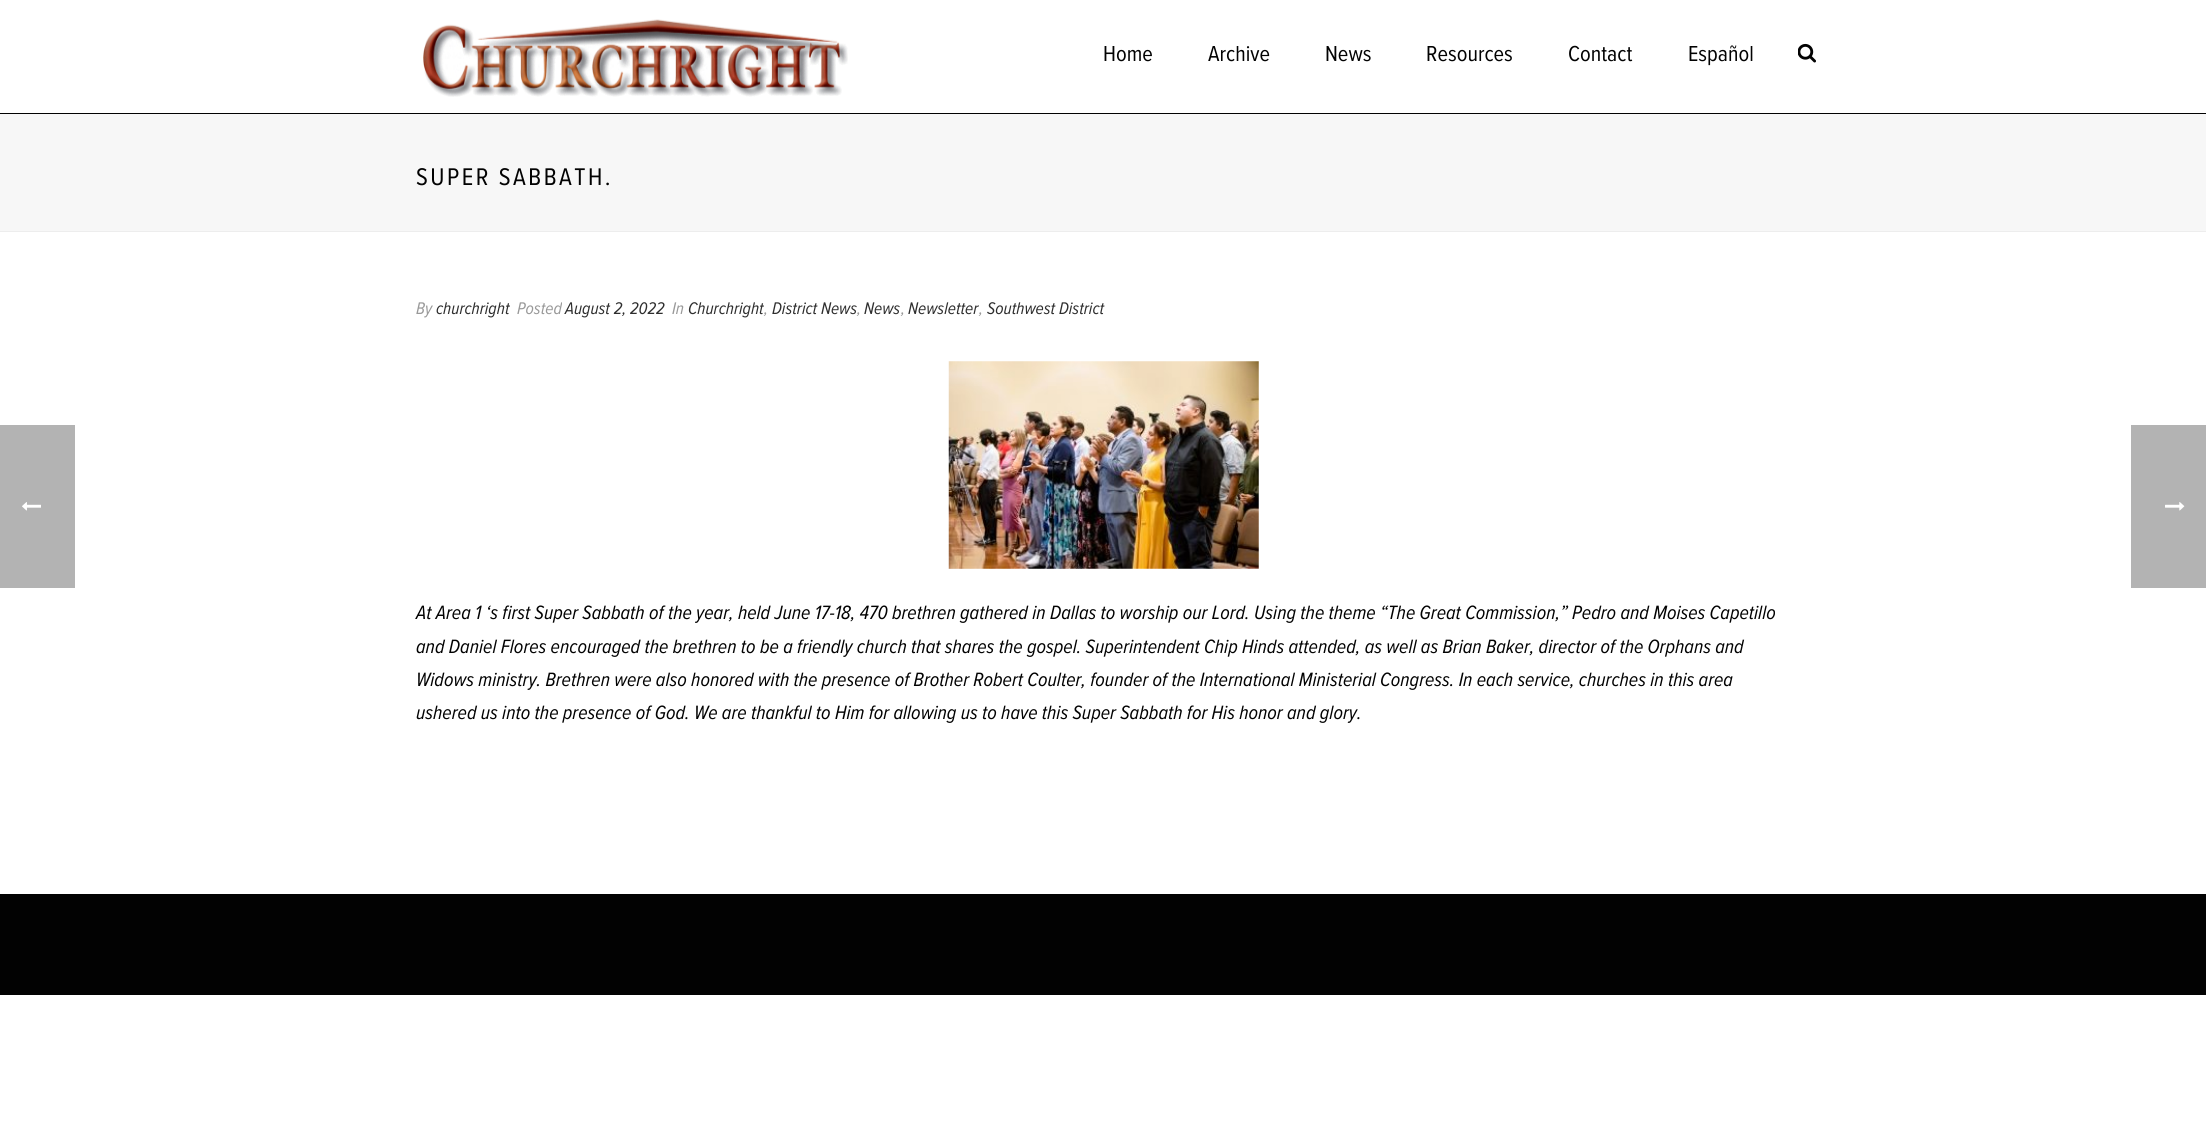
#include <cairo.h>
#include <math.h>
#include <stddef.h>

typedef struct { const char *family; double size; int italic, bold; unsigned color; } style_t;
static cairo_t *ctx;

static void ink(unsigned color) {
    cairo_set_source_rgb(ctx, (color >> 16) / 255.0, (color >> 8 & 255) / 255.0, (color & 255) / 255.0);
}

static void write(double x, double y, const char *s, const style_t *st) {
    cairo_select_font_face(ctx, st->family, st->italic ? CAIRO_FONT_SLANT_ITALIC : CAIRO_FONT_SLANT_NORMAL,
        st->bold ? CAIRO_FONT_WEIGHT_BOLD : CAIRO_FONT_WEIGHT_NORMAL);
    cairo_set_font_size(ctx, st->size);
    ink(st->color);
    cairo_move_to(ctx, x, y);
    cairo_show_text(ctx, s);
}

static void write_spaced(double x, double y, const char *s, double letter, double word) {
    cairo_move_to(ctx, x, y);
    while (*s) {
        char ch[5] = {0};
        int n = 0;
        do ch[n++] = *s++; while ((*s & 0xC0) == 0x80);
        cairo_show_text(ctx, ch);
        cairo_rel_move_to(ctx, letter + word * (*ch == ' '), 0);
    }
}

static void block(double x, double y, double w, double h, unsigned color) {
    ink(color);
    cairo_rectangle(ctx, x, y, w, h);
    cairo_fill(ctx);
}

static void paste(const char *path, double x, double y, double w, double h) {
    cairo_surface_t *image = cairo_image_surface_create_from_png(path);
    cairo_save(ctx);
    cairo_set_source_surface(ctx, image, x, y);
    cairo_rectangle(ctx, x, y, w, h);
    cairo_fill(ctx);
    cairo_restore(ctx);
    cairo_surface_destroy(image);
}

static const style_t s1 = {"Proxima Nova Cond", 22.5, 0, 0, 0x020202};
static const style_t s2 = {"Proxima Nova Cond", 17.5, 1, 0, 0x999999};
static const style_t s3 = {"Proxima Nova Cond", 17.5, 1, 0, 0x2e2e2e};
static const style_t s4 = {"Proxima Nova Cond", 20, 1, 0, 0x020202};

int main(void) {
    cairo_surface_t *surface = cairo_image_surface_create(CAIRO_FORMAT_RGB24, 2206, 1136);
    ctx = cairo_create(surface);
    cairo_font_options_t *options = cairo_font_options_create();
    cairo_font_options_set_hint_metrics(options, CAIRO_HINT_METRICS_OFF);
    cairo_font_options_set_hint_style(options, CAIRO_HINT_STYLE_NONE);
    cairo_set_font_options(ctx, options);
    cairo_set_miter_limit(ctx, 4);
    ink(0xffffff);
    cairo_paint(ctx);
    block(0, 425, 75, 163, 0xb3b3b3);
    paste("pic1.png", 22, 502, 19, 9);
    block(0, 231, 2206, 1, 0xededed);
    block(0, 113, 2206, 1, 0x020202);
    paste("pic2.png", 423, 19, 425, 78);
    write(1103, 61, "Home", &s1);
    write(1208, 61, "Archive", &s1);
    write(1325, 61, "News", &s1);
    write(1426, 61, "Resources", &s1);
    write(1568, 61, "Contact", &s1);
    write(1688, 61, "Español", &s1);
    paste("pic3.png", 1798, 43, 18, 20);
    block(0, 114, 2206, 117, 0xf7f7f7);
    cairo_set_font_size(ctx, 25);
    ink(0x020202);
    write_spaced(416, 185, "SUPER SABBATH.", 2.5, 0);
    write(416, 314, "By", &s2);
    write(436, 314, "churchright", &s3);
    write(517, 314, "Posted", &s2);
    write(565, 314, "August 2, 2022", &s3);
    write(672, 314, "In", &s2);
    write(688, 314, "Churchright", &s3);
    write(772, 314, "District News", &s3);
    write(864, 314, "News", &s3);
    write(908, 314, "Newsletter", &s3);
    write(987, 314, "Southwest District", &s3);
    write(764, 314, ",", &s2);
    write(857, 314, ",", &s2);
    write(901, 314, ",", &s2);
    write(979, 314, ",", &s2);
    paste("pic4.png", 948, 361, 311, 208);
    write(416, 619, "At Area 1 ‘s first Super Sabbath of the year, held June 17-18, 470 brethren gathered in Dallas to worship our Lord. Using the theme “The Great Commission,” Pedro and Moises Capetillo", &s4);
    write(416, 653, "and Daniel Flores encouraged the brethren to be a friendly church that shares the gospel. Superintendent Chip Hinds attended, as well as Brian Baker, director of the Orphans and", &s4);
    write(416, 686, "Widows ministry. Brethren were also honored with the presence of Brother Robert Coulter, founder of the International Ministerial Congress. In each service, churches in this area", &s4);
    write(416, 719, "ushered us into the presence of God. We are thankful to Him for allowing us to have this Super Sabbath for His honor and glory.", &s4);
    block(0, 894, 2206, 101, 0x020202);
    block(2131, 425, 75, 163, 0xb3b3b3);
    paste("pic5.png", 2165, 502, 20, 9);
    cairo_surface_write_to_png(surface, "screenshot.png");
    cairo_font_options_destroy(options);
    cairo_destroy(ctx);
    cairo_surface_destroy(surface);
    return 0;
}
